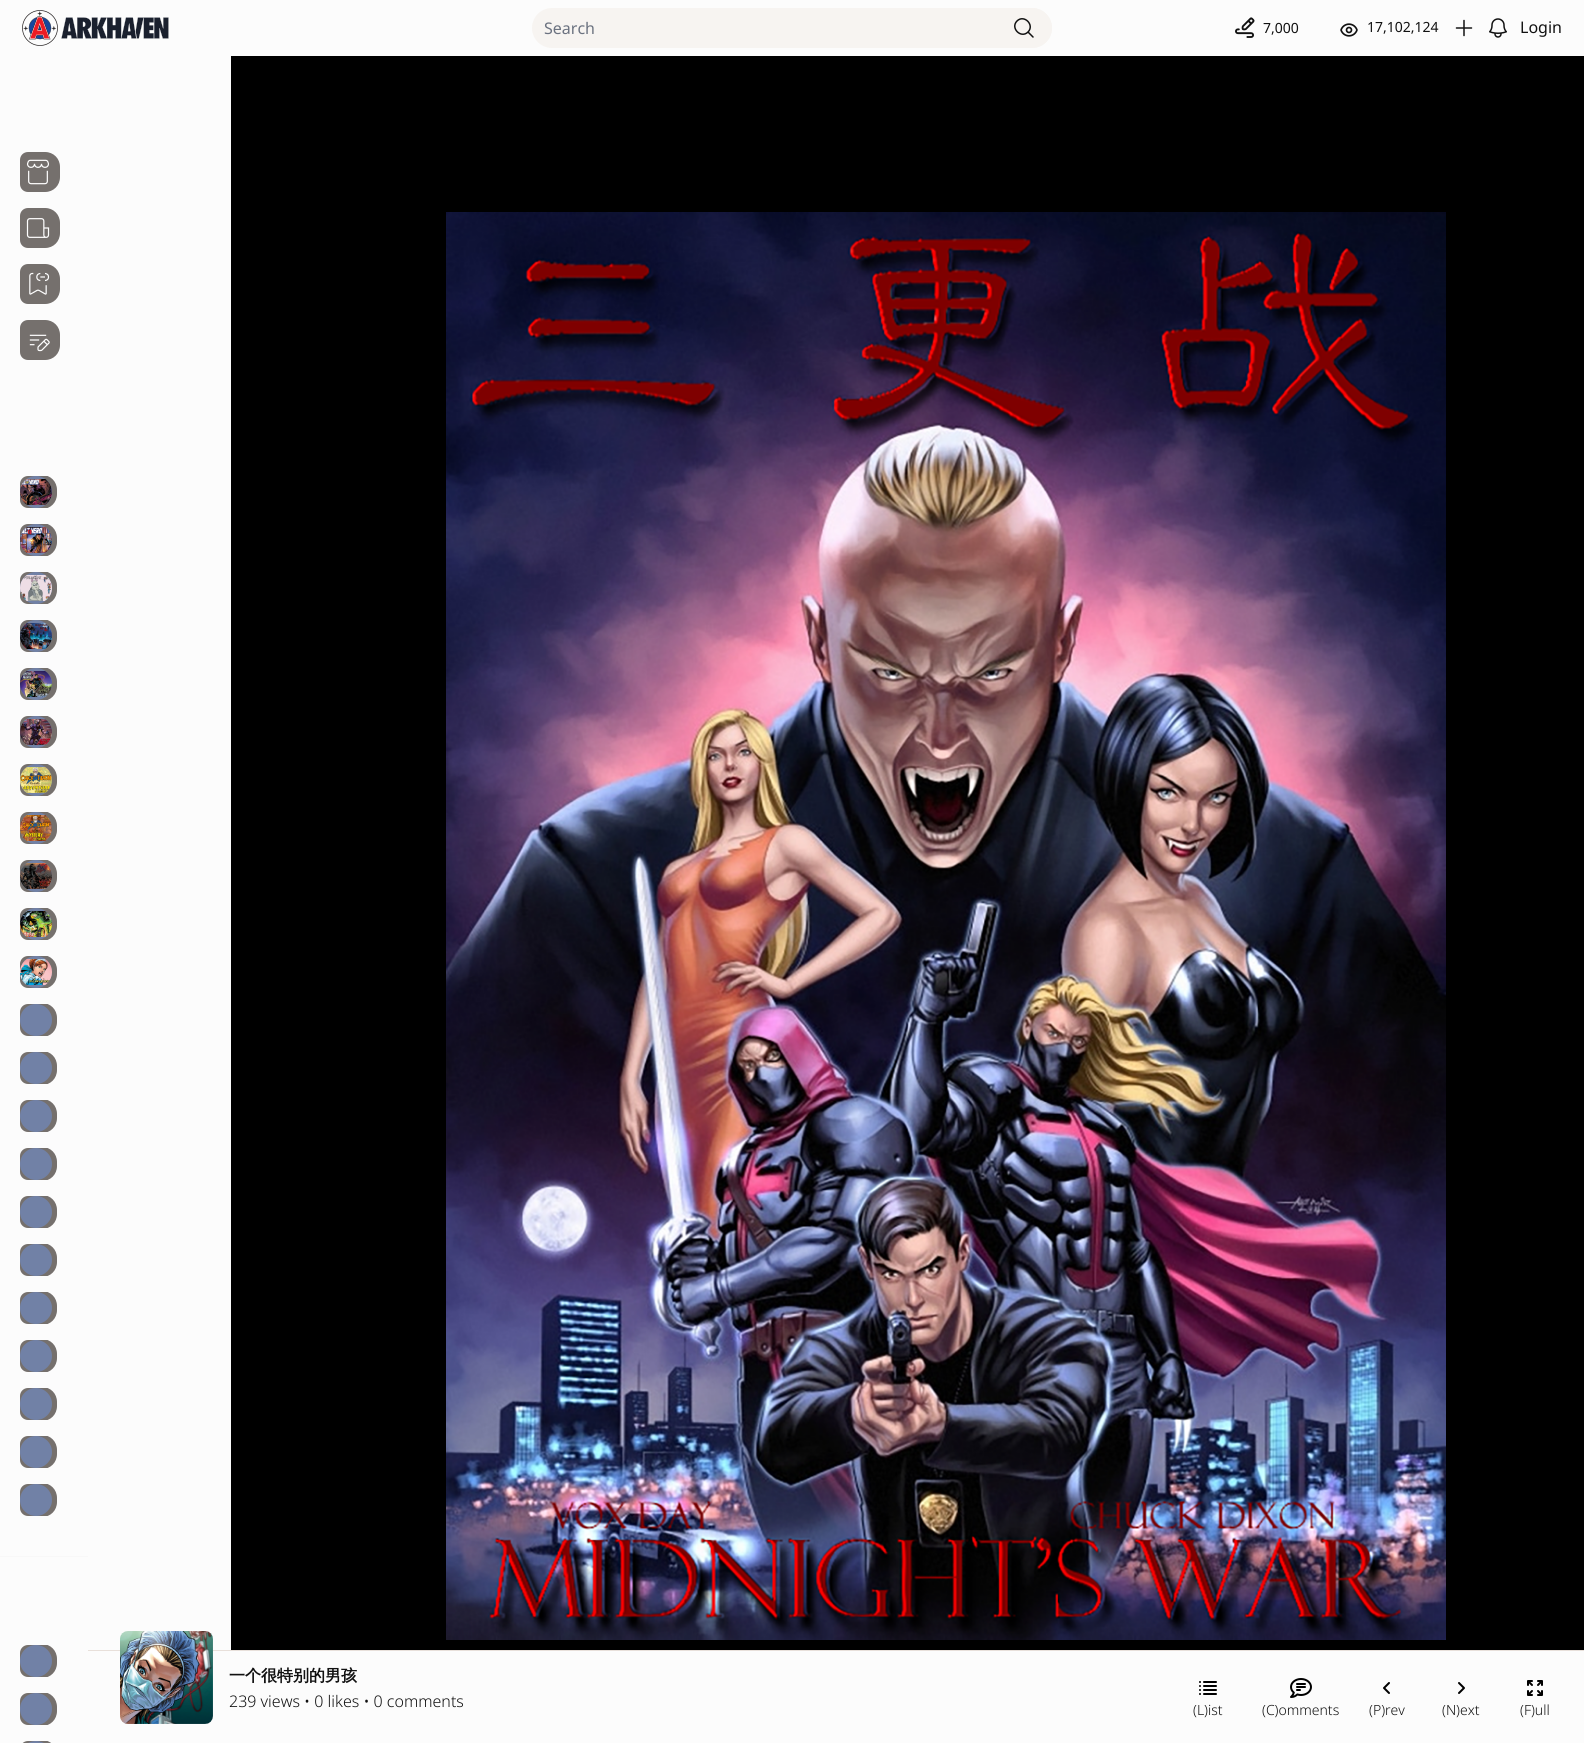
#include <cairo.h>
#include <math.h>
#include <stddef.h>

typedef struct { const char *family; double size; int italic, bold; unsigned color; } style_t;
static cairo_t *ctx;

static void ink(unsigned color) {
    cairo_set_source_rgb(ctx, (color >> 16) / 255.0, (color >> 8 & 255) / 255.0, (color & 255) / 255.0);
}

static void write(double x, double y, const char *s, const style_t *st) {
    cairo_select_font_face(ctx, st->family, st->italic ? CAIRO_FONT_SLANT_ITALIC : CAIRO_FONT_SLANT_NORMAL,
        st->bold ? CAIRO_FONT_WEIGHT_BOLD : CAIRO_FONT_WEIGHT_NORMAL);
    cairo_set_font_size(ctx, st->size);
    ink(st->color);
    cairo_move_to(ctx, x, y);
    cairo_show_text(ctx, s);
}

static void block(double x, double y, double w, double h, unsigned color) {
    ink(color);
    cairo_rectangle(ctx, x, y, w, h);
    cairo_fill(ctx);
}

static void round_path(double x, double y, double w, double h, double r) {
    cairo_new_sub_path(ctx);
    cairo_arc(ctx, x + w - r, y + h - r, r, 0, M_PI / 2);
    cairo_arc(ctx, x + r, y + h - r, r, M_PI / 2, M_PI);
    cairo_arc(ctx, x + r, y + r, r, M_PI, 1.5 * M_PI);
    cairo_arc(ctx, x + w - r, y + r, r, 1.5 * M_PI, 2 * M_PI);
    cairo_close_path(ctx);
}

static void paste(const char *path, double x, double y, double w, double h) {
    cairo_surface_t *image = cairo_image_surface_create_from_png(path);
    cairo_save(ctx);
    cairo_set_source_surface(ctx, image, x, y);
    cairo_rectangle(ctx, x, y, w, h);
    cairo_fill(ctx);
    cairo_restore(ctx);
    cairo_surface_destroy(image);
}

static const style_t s1 = {"Noto Sans", 16, 0, 0, 0x6b7280};
static const style_t s2 = {"Noto Sans", 14, 0, 0, 0x111111};
static const style_t s3 = {"Noto Sans", 16, 0, 0, 0x111111};
static const style_t s4 = {"WenQuanYi Zen Hei", 16, 0, 1, 0x111111};
static const style_t s5 = {"Noto Sans Light", 16, 0, 0, 0x111111};
static const style_t s6 = {"Noto Sans Light", 14, 0, 0, 0x111111};

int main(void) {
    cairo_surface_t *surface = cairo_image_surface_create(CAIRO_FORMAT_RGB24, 1584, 1743);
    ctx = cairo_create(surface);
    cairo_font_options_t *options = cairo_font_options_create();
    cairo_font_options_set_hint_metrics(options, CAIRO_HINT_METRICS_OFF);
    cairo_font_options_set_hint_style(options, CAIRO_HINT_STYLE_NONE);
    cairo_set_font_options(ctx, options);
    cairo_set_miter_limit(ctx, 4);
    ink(0xfcfcfc);
    cairo_paint(ctx);
    paste("pic1.png", 22, 10, 147, 36);
    ink(0xf7f4f1);
    round_path(532, 8, 520, 40, 20);
    cairo_fill(ctx);
    write(544, 34, "Search", &s1);
    ink(0xf7f4f1);
    cairo_new_path(ctx);
    cairo_move_to(ctx, 995, 8);
    cairo_line_to(ctx, 1032, 8);
    cairo_curve_to(ctx, 1043, 8, 1052, 17, 1052, 28);
    cairo_curve_to(ctx, 1052, 39, 1043, 48, 1032, 48);
    cairo_line_to(ctx, 995, 48);
    cairo_close_path(ctx);
    cairo_fill(ctx);
    cairo_new_path(ctx);
    cairo_move_to(ctx, 1033, 37);
    cairo_line_to(ctx, 1028, 32);
    cairo_move_to(ctx, 1028, 32);
    cairo_curve_to(ctx, 1035, 25, 1024, 14, 1017, 21);
    cairo_curve_to(ctx, 1010, 28, 1021, 39, 1028, 32);
    cairo_close_path(ctx);
    ink(0x111111);
    cairo_set_line_width(ctx, 1.5);
    cairo_set_line_cap(ctx, CAIRO_LINE_CAP_ROUND);
    cairo_set_line_join(ctx, CAIRO_LINE_JOIN_ROUND);
    cairo_stroke(ctx);
    paste("pic2.png", 1235, 17, 20, 21);
    write(1263, 33, "7,000", &s2);
    paste("pic3.png", 1340, 23, 18, 14);
    write(1367, 32, "17,102,124", &s2);
    cairo_new_path(ctx);
    cairo_move_to(ctx, 1464, 20.5);
    cairo_line_to(ctx, 1464, 35.5);
    cairo_move_to(ctx, 1471.5, 28);
    cairo_line_to(ctx, 1456.5, 28);
    cairo_stroke(ctx);
    paste("pic4.png", 1489, 18, 18, 20);
    write(1520, 33, "Login", &s3);
    ink(0x75706d);
    cairo_new_path(ctx);
    cairo_move_to(ctx, 28, 152);
    cairo_line_to(ctx, 45, 152);
    cairo_curve_to(ctx, 53.5, 152, 60, 158.5, 60, 167);
    cairo_line_to(ctx, 60, 177);
    cairo_curve_to(ctx, 60, 185.5, 53.5, 192, 45, 192);
    cairo_line_to(ctx, 28, 192);
    cairo_curve_to(ctx, 23.5, 192, 20, 188.5, 20, 184);
    cairo_line_to(ctx, 20, 160);
    cairo_curve_to(ctx, 20, 155.5, 23.5, 152, 28, 152);
    cairo_close_path(ctx);
    cairo_fill(ctx);
    paste("pic5.png", 26, 159, 23, 26);
    cairo_new_path(ctx);
    cairo_move_to(ctx, 28, 208);
    cairo_line_to(ctx, 45, 208);
    cairo_curve_to(ctx, 53.5, 208, 60, 214.5, 60, 223);
    cairo_line_to(ctx, 60, 233);
    cairo_curve_to(ctx, 60, 241.5, 53.5, 248, 45, 248);
    cairo_line_to(ctx, 28, 248);
    cairo_curve_to(ctx, 23.5, 248, 20, 244.5, 20, 240);
    cairo_line_to(ctx, 20, 216);
    cairo_curve_to(ctx, 20, 211.5, 23.5, 208, 28, 208);
    cairo_close_path(ctx);
    cairo_fill(ctx);
    paste("pic6.png", 26, 218, 24, 20);
    cairo_new_path(ctx);
    cairo_move_to(ctx, 28, 264);
    cairo_line_to(ctx, 45, 264);
    cairo_curve_to(ctx, 53.5, 264, 60, 270.5, 60, 279);
    cairo_line_to(ctx, 60, 289);
    cairo_curve_to(ctx, 60, 297.5, 53.5, 304, 45, 304);
    cairo_line_to(ctx, 28, 304);
    cairo_curve_to(ctx, 23.5, 304, 20, 300.5, 20, 296);
    cairo_line_to(ctx, 20, 272);
    cairo_curve_to(ctx, 20, 267.5, 23.5, 264, 28, 264);
    cairo_close_path(ctx);
    cairo_fill(ctx);
    paste("pic7.png", 29, 272, 21, 23);
    cairo_new_path(ctx);
    cairo_move_to(ctx, 28, 320);
    cairo_line_to(ctx, 45, 320);
    cairo_curve_to(ctx, 53.5, 320, 60, 326.5, 60, 335);
    cairo_line_to(ctx, 60, 345);
    cairo_curve_to(ctx, 60, 353.5, 53.5, 360, 45, 360);
    cairo_line_to(ctx, 28, 360);
    cairo_curve_to(ctx, 23.5, 360, 20, 356.5, 20, 352);
    cairo_line_to(ctx, 20, 328);
    cairo_curve_to(ctx, 20, 323.5, 23.5, 320, 28, 320);
    cairo_close_path(ctx);
    cairo_fill(ctx);
    paste("pic8.png", 29, 334, 21, 18);
    cairo_save(ctx);
    round_path(20, 476, 44, 32, 8);
    cairo_clip(ctx);
    cairo_new_path(ctx);
    cairo_move_to(ctx, 20, 475);
    cairo_line_to(ctx, 42, 475);
    cairo_curve_to(ctx, 50.5, 475, 57, 481.5, 57, 490);
    cairo_line_to(ctx, 57, 494);
    cairo_curve_to(ctx, 57, 502.5, 50.5, 509, 42, 509);
    cairo_line_to(ctx, 20, 509);
    cairo_close_path(ctx);
    cairo_fill(ctx);
    cairo_restore(ctx);
    ink(0x7181a6);
    cairo_arc(ctx, 36, 492, 16, 0, 2 * M_PI);
    cairo_fill(ctx);
    paste("pic9.png", 20, 479, 32, 26);
    cairo_save(ctx);
    round_path(20, 524, 44, 32, 8);
    cairo_clip(ctx);
    ink(0x75706d);
    cairo_new_path(ctx);
    cairo_move_to(ctx, 20, 523);
    cairo_line_to(ctx, 42, 523);
    cairo_curve_to(ctx, 50.5, 523, 57, 529.5, 57, 538);
    cairo_line_to(ctx, 57, 542);
    cairo_curve_to(ctx, 57, 550.5, 50.5, 557, 42, 557);
    cairo_line_to(ctx, 20, 557);
    cairo_close_path(ctx);
    cairo_fill(ctx);
    cairo_restore(ctx);
    cairo_arc(ctx, 36, 540, 16, 0, 2 * M_PI);
    cairo_fill(ctx);
    paste("pic10.png", 20, 527, 32, 26);
    cairo_save(ctx);
    round_path(20, 572, 44, 32, 8);
    cairo_clip(ctx);
    ink(0x75706d);
    cairo_new_path(ctx);
    cairo_move_to(ctx, 20, 571);
    cairo_line_to(ctx, 42, 571);
    cairo_curve_to(ctx, 50.5, 571, 57, 577.5, 57, 586);
    cairo_line_to(ctx, 57, 590);
    cairo_curve_to(ctx, 57, 598.5, 50.5, 605, 42, 605);
    cairo_line_to(ctx, 20, 605);
    cairo_close_path(ctx);
    cairo_fill(ctx);
    cairo_restore(ctx);
    cairo_arc(ctx, 36, 588, 16, 0, 2 * M_PI);
    cairo_fill(ctx);
    paste("pic11.png", 20, 575, 32, 26);
    cairo_save(ctx);
    round_path(20, 620, 44, 32, 8);
    cairo_clip(ctx);
    ink(0x75706d);
    cairo_new_path(ctx);
    cairo_move_to(ctx, 20, 619);
    cairo_line_to(ctx, 42, 619);
    cairo_curve_to(ctx, 50.5, 619, 57, 625.5, 57, 634);
    cairo_line_to(ctx, 57, 638);
    cairo_curve_to(ctx, 57, 646.5, 50.5, 653, 42, 653);
    cairo_line_to(ctx, 20, 653);
    cairo_close_path(ctx);
    cairo_fill(ctx);
    cairo_restore(ctx);
    cairo_arc(ctx, 36, 636, 16, 0, 2 * M_PI);
    cairo_fill(ctx);
    paste("pic12.png", 20, 623, 32, 26);
    cairo_save(ctx);
    round_path(20, 668, 44, 32, 8);
    cairo_clip(ctx);
    ink(0x75706d);
    cairo_new_path(ctx);
    cairo_move_to(ctx, 20, 667);
    cairo_line_to(ctx, 42, 667);
    cairo_curve_to(ctx, 50.5, 667, 57, 673.5, 57, 682);
    cairo_line_to(ctx, 57, 686);
    cairo_curve_to(ctx, 57, 694.5, 50.5, 701, 42, 701);
    cairo_line_to(ctx, 20, 701);
    cairo_close_path(ctx);
    cairo_fill(ctx);
    cairo_restore(ctx);
    cairo_arc(ctx, 36, 684, 16, 0, 2 * M_PI);
    cairo_fill(ctx);
    paste("pic13.png", 20, 671, 32, 26);
    cairo_save(ctx);
    round_path(20, 716, 44, 32, 8);
    cairo_clip(ctx);
    ink(0x75706d);
    cairo_new_path(ctx);
    cairo_move_to(ctx, 20, 715);
    cairo_line_to(ctx, 42, 715);
    cairo_curve_to(ctx, 50.5, 715, 57, 721.5, 57, 730);
    cairo_line_to(ctx, 57, 734);
    cairo_curve_to(ctx, 57, 742.5, 50.5, 749, 42, 749);
    cairo_line_to(ctx, 20, 749);
    cairo_close_path(ctx);
    cairo_fill(ctx);
    cairo_restore(ctx);
    cairo_arc(ctx, 36, 732, 16, 0, 2 * M_PI);
    cairo_fill(ctx);
    paste("pic14.png", 20, 719, 32, 26);
    cairo_save(ctx);
    round_path(20, 764, 44, 32, 8);
    cairo_clip(ctx);
    ink(0x75706d);
    cairo_new_path(ctx);
    cairo_move_to(ctx, 20, 763);
    cairo_line_to(ctx, 42, 763);
    cairo_curve_to(ctx, 50.5, 763, 57, 769.5, 57, 778);
    cairo_line_to(ctx, 57, 782);
    cairo_curve_to(ctx, 57, 790.5, 50.5, 797, 42, 797);
    cairo_line_to(ctx, 20, 797);
    cairo_close_path(ctx);
    cairo_fill(ctx);
    cairo_restore(ctx);
    cairo_arc(ctx, 36, 780, 16, 0, 2 * M_PI);
    cairo_fill(ctx);
    paste("pic15.png", 20, 767, 32, 26);
    cairo_save(ctx);
    round_path(20, 812, 44, 32, 8);
    cairo_clip(ctx);
    ink(0x75706d);
    cairo_new_path(ctx);
    cairo_move_to(ctx, 20, 811);
    cairo_line_to(ctx, 42, 811);
    cairo_curve_to(ctx, 50.5, 811, 57, 817.5, 57, 826);
    cairo_line_to(ctx, 57, 830);
    cairo_curve_to(ctx, 57, 838.5, 50.5, 845, 42, 845);
    cairo_line_to(ctx, 20, 845);
    cairo_close_path(ctx);
    cairo_fill(ctx);
    cairo_restore(ctx);
    cairo_arc(ctx, 36, 828, 16, 0, 2 * M_PI);
    cairo_fill(ctx);
    paste("pic16.png", 20, 815, 32, 26);
    cairo_save(ctx);
    round_path(20, 860, 44, 32, 8);
    cairo_clip(ctx);
    ink(0x75706d);
    cairo_new_path(ctx);
    cairo_move_to(ctx, 20, 859);
    cairo_line_to(ctx, 42, 859);
    cairo_curve_to(ctx, 50.5, 859, 57, 865.5, 57, 874);
    cairo_line_to(ctx, 57, 878);
    cairo_curve_to(ctx, 57, 886.5, 50.5, 893, 42, 893);
    cairo_line_to(ctx, 20, 893);
    cairo_close_path(ctx);
    cairo_fill(ctx);
    cairo_restore(ctx);
    cairo_arc(ctx, 36, 876, 16, 0, 2 * M_PI);
    cairo_fill(ctx);
    paste("pic17.png", 20, 863, 32, 26);
    cairo_save(ctx);
    round_path(20, 908, 44, 32, 8);
    cairo_clip(ctx);
    ink(0x75706d);
    cairo_new_path(ctx);
    cairo_move_to(ctx, 20, 907);
    cairo_line_to(ctx, 42, 907);
    cairo_curve_to(ctx, 50.5, 907, 57, 913.5, 57, 922);
    cairo_line_to(ctx, 57, 926);
    cairo_curve_to(ctx, 57, 934.5, 50.5, 941, 42, 941);
    cairo_line_to(ctx, 20, 941);
    cairo_close_path(ctx);
    cairo_fill(ctx);
    cairo_restore(ctx);
    cairo_arc(ctx, 36, 924, 16, 0, 2 * M_PI);
    cairo_fill(ctx);
    paste("pic18.png", 20, 911, 32, 26);
    cairo_save(ctx);
    round_path(20, 956, 44, 32, 8);
    cairo_clip(ctx);
    ink(0x75706d);
    cairo_new_path(ctx);
    cairo_move_to(ctx, 20, 955);
    cairo_line_to(ctx, 42, 955);
    cairo_curve_to(ctx, 50.5, 955, 57, 961.5, 57, 970);
    cairo_line_to(ctx, 57, 974);
    cairo_curve_to(ctx, 57, 982.5, 50.5, 989, 42, 989);
    cairo_line_to(ctx, 20, 989);
    cairo_close_path(ctx);
    cairo_fill(ctx);
    cairo_restore(ctx);
    cairo_arc(ctx, 36, 972, 16, 0, 2 * M_PI);
    cairo_fill(ctx);
    paste("pic19.png", 20, 959, 32, 26);
    cairo_save(ctx);
    round_path(20, 1004, 44, 32, 8);
    cairo_clip(ctx);
    ink(0x75706d);
    cairo_new_path(ctx);
    cairo_move_to(ctx, 20, 1003);
    cairo_line_to(ctx, 42, 1003);
    cairo_curve_to(ctx, 50.5, 1003, 57, 1009.5, 57, 1018);
    cairo_line_to(ctx, 57, 1022);
    cairo_curve_to(ctx, 57, 1030.5, 50.5, 1037, 42, 1037);
    cairo_line_to(ctx, 20, 1037);
    cairo_close_path(ctx);
    cairo_fill(ctx);
    cairo_restore(ctx);
    cairo_arc(ctx, 36, 1020, 16, 0, 2 * M_PI);
    cairo_fill(ctx);
    cairo_save(ctx);
    round_path(20, 1052, 44, 32, 8);
    cairo_clip(ctx);
    ink(0x75706d);
    cairo_new_path(ctx);
    cairo_move_to(ctx, 20, 1051);
    cairo_line_to(ctx, 42, 1051);
    cairo_curve_to(ctx, 50.5, 1051, 57, 1057.5, 57, 1066);
    cairo_line_to(ctx, 57, 1070);
    cairo_curve_to(ctx, 57, 1078.5, 50.5, 1085, 42, 1085);
    cairo_line_to(ctx, 20, 1085);
    cairo_close_path(ctx);
    cairo_fill(ctx);
    cairo_restore(ctx);
    cairo_arc(ctx, 36, 1068, 16, 0, 2 * M_PI);
    cairo_fill(ctx);
    cairo_save(ctx);
    round_path(20, 1100, 44, 32, 8);
    cairo_clip(ctx);
    ink(0x75706d);
    cairo_new_path(ctx);
    cairo_move_to(ctx, 20, 1099);
    cairo_line_to(ctx, 42, 1099);
    cairo_curve_to(ctx, 50.5, 1099, 57, 1105.5, 57, 1114);
    cairo_line_to(ctx, 57, 1118);
    cairo_curve_to(ctx, 57, 1126.5, 50.5, 1133, 42, 1133);
    cairo_line_to(ctx, 20, 1133);
    cairo_close_path(ctx);
    cairo_fill(ctx);
    cairo_restore(ctx);
    cairo_arc(ctx, 36, 1116, 16, 0, 2 * M_PI);
    cairo_fill(ctx);
    cairo_save(ctx);
    round_path(20, 1148, 44, 32, 8);
    cairo_clip(ctx);
    ink(0x75706d);
    cairo_new_path(ctx);
    cairo_move_to(ctx, 20, 1147);
    cairo_line_to(ctx, 42, 1147);
    cairo_curve_to(ctx, 50.5, 1147, 57, 1153.5, 57, 1162);
    cairo_line_to(ctx, 57, 1166);
    cairo_curve_to(ctx, 57, 1174.5, 50.5, 1181, 42, 1181);
    cairo_line_to(ctx, 20, 1181);
    cairo_close_path(ctx);
    cairo_fill(ctx);
    cairo_restore(ctx);
    cairo_arc(ctx, 36, 1164, 16, 0, 2 * M_PI);
    cairo_fill(ctx);
    cairo_save(ctx);
    round_path(20, 1196, 44, 32, 8);
    cairo_clip(ctx);
    ink(0x75706d);
    cairo_new_path(ctx);
    cairo_move_to(ctx, 20, 1195);
    cairo_line_to(ctx, 42, 1195);
    cairo_curve_to(ctx, 50.5, 1195, 57, 1201.5, 57, 1210);
    cairo_line_to(ctx, 57, 1214);
    cairo_curve_to(ctx, 57, 1222.5, 50.5, 1229, 42, 1229);
    cairo_line_to(ctx, 20, 1229);
    cairo_close_path(ctx);
    cairo_fill(ctx);
    cairo_restore(ctx);
    cairo_arc(ctx, 36, 1212, 16, 0, 2 * M_PI);
    cairo_fill(ctx);
    cairo_save(ctx);
    round_path(20, 1244, 44, 32, 8);
    cairo_clip(ctx);
    ink(0x75706d);
    cairo_new_path(ctx);
    cairo_move_to(ctx, 20, 1243);
    cairo_line_to(ctx, 42, 1243);
    cairo_curve_to(ctx, 50.5, 1243, 57, 1249.5, 57, 1258);
    cairo_line_to(ctx, 57, 1262);
    cairo_curve_to(ctx, 57, 1270.5, 50.5, 1277, 42, 1277);
    cairo_line_to(ctx, 20, 1277);
    cairo_close_path(ctx);
    cairo_fill(ctx);
    cairo_restore(ctx);
    cairo_arc(ctx, 36, 1260, 16, 0, 2 * M_PI);
    cairo_fill(ctx);
    cairo_save(ctx);
    round_path(20, 1292, 44, 32, 8);
    cairo_clip(ctx);
    ink(0x75706d);
    cairo_new_path(ctx);
    cairo_move_to(ctx, 20, 1291);
    cairo_line_to(ctx, 42, 1291);
    cairo_curve_to(ctx, 50.5, 1291, 57, 1297.5, 57, 1306);
    cairo_line_to(ctx, 57, 1310);
    cairo_curve_to(ctx, 57, 1318.5, 50.5, 1325, 42, 1325);
    cairo_line_to(ctx, 20, 1325);
    cairo_close_path(ctx);
    cairo_fill(ctx);
    cairo_restore(ctx);
    cairo_arc(ctx, 36, 1308, 16, 0, 2 * M_PI);
    cairo_fill(ctx);
    cairo_save(ctx);
    round_path(20, 1340, 44, 32, 8);
    cairo_clip(ctx);
    ink(0x75706d);
    cairo_new_path(ctx);
    cairo_move_to(ctx, 20, 1339);
    cairo_line_to(ctx, 42, 1339);
    cairo_curve_to(ctx, 50.5, 1339, 57, 1345.5, 57, 1354);
    cairo_line_to(ctx, 57, 1358);
    cairo_curve_to(ctx, 57, 1366.5, 50.5, 1373, 42, 1373);
    cairo_line_to(ctx, 20, 1373);
    cairo_close_path(ctx);
    cairo_fill(ctx);
    cairo_restore(ctx);
    cairo_arc(ctx, 36, 1356, 16, 0, 2 * M_PI);
    cairo_fill(ctx);
    cairo_save(ctx);
    round_path(20, 1388, 44, 32, 8);
    cairo_clip(ctx);
    ink(0x75706d);
    cairo_new_path(ctx);
    cairo_move_to(ctx, 20, 1387);
    cairo_line_to(ctx, 42, 1387);
    cairo_curve_to(ctx, 50.5, 1387, 57, 1393.5, 57, 1402);
    cairo_line_to(ctx, 57, 1406);
    cairo_curve_to(ctx, 57, 1414.5, 50.5, 1421, 42, 1421);
    cairo_line_to(ctx, 20, 1421);
    cairo_close_path(ctx);
    cairo_fill(ctx);
    cairo_restore(ctx);
    cairo_arc(ctx, 36, 1404, 16, 0, 2 * M_PI);
    cairo_fill(ctx);
    cairo_save(ctx);
    round_path(20, 1436, 44, 32, 8);
    cairo_clip(ctx);
    ink(0x75706d);
    cairo_new_path(ctx);
    cairo_move_to(ctx, 20, 1435);
    cairo_line_to(ctx, 42, 1435);
    cairo_curve_to(ctx, 50.5, 1435, 57, 1441.5, 57, 1450);
    cairo_line_to(ctx, 57, 1454);
    cairo_curve_to(ctx, 57, 1462.5, 50.5, 1469, 42, 1469);
    cairo_line_to(ctx, 20, 1469);
    cairo_close_path(ctx);
    cairo_fill(ctx);
    cairo_restore(ctx);
    cairo_arc(ctx, 36, 1452, 16, 0, 2 * M_PI);
    cairo_fill(ctx);
    cairo_save(ctx);
    round_path(20, 1484, 44, 32, 8);
    cairo_clip(ctx);
    ink(0x75706d);
    cairo_new_path(ctx);
    cairo_move_to(ctx, 20, 1483);
    cairo_line_to(ctx, 42, 1483);
    cairo_curve_to(ctx, 50.5, 1483, 57, 1489.5, 57, 1498);
    cairo_line_to(ctx, 57, 1502);
    cairo_curve_to(ctx, 57, 1510.5, 50.5, 1517, 42, 1517);
    cairo_line_to(ctx, 20, 1517);
    cairo_close_path(ctx);
    cairo_fill(ctx);
    cairo_restore(ctx);
    cairo_arc(ctx, 36, 1500, 16, 0, 2 * M_PI);
    cairo_fill(ctx);
    block(0, 1556, 88, 1, 0xf8f8f8);
    cairo_save(ctx);
    round_path(20, 1645, 44, 32, 8);
    cairo_clip(ctx);
    ink(0x75706d);
    cairo_new_path(ctx);
    cairo_move_to(ctx, 20, 1644);
    cairo_line_to(ctx, 42, 1644);
    cairo_curve_to(ctx, 50.5, 1644, 57, 1650.5, 57, 1659);
    cairo_line_to(ctx, 57, 1663);
    cairo_curve_to(ctx, 57, 1671.5, 50.5, 1678, 42, 1678);
    cairo_line_to(ctx, 20, 1678);
    cairo_close_path(ctx);
    cairo_fill(ctx);
    cairo_restore(ctx);
    ink(0x7181a6);
    cairo_arc(ctx, 36, 1661, 16, 0, 2 * M_PI);
    cairo_fill(ctx);
    cairo_save(ctx);
    round_path(20, 1693, 44, 32, 8);
    cairo_clip(ctx);
    ink(0x75706d);
    cairo_new_path(ctx);
    cairo_move_to(ctx, 20, 1692);
    cairo_line_to(ctx, 42, 1692);
    cairo_curve_to(ctx, 50.5, 1692, 57, 1698.5, 57, 1707);
    cairo_line_to(ctx, 57, 1711);
    cairo_curve_to(ctx, 57, 1719.5, 50.5, 1726, 42, 1726);
    cairo_line_to(ctx, 20, 1726);
    cairo_close_path(ctx);
    cairo_fill(ctx);
    cairo_restore(ctx);
    cairo_arc(ctx, 36, 1709, 16, 0, 2 * M_PI);
    cairo_fill(ctx);
    cairo_save(ctx);
    round_path(20, 1741, 44, 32, 8);
    cairo_clip(ctx);
    ink(0x75706d);
    cairo_new_path(ctx);
    cairo_move_to(ctx, 20, 1740);
    cairo_line_to(ctx, 42, 1740);
    cairo_curve_to(ctx, 50.5, 1740, 57, 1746.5, 57, 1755);
    cairo_line_to(ctx, 57, 1743);
    cairo_curve_to(ctx, 57, 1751.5, 50.5, 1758, 42, 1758);
    cairo_line_to(ctx, 20, 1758);
    cairo_close_path(ctx);
    cairo_fill(ctx);
    cairo_restore(ctx);
    round_path(20, 1741, 32, 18, 16);
    cairo_fill(ctx);
    block(231, 56, 1353, 1594, 0x000000);
    paste("pic20.png", 446, 212, 1000, 1428);
    block(88, 1650, 1496, 1, 0xe8e0da);
    ink(0xfcfcfc);
    round_path(120, 1631, 93, 93, 8);
    cairo_fill(ctx);
    paste("pic21.png", 120, 1631, 93, 93);
    write(229, 1681, "一个很特别的男孩", &s4);
    write(229, 1707, "239 views • 0 likes • 0 comments", &s5);
    paste("pic22.png", 1199, 1681, 18, 14);
    write(1193, 1715, "(L)ist", &s6);
    paste("pic23.png", 1290, 1678, 22, 20);
    write(1262, 1715, "(C)omments", &s6);
    cairo_new_path(ctx);
    cairo_move_to(ctx, 1389, 1683);
    cairo_line_to(ctx, 1384, 1688);
    cairo_line_to(ctx, 1389, 1693);
    ink(0x000000);
    cairo_set_line_width(ctx, 2);
    cairo_stroke(ctx);
    write(1369, 1715, "(P)rev", &s6);
    cairo_new_path(ctx);
    cairo_move_to(ctx, 1459, 1683);
    cairo_line_to(ctx, 1464, 1688);
    cairo_line_to(ctx, 1459, 1693);
    ink(0x000000);
    cairo_stroke(ctx);
    write(1442, 1715, "(N)ext", &s6);
    paste("pic24.png", 1527, 1680, 16, 16);
    write(1520, 1715, "(F)ull", &s6);
    cairo_surface_write_to_png(surface, "screenshot.png");
    cairo_font_options_destroy(options);
    cairo_destroy(ctx);
    cairo_surface_destroy(surface);
    return 0;
}
